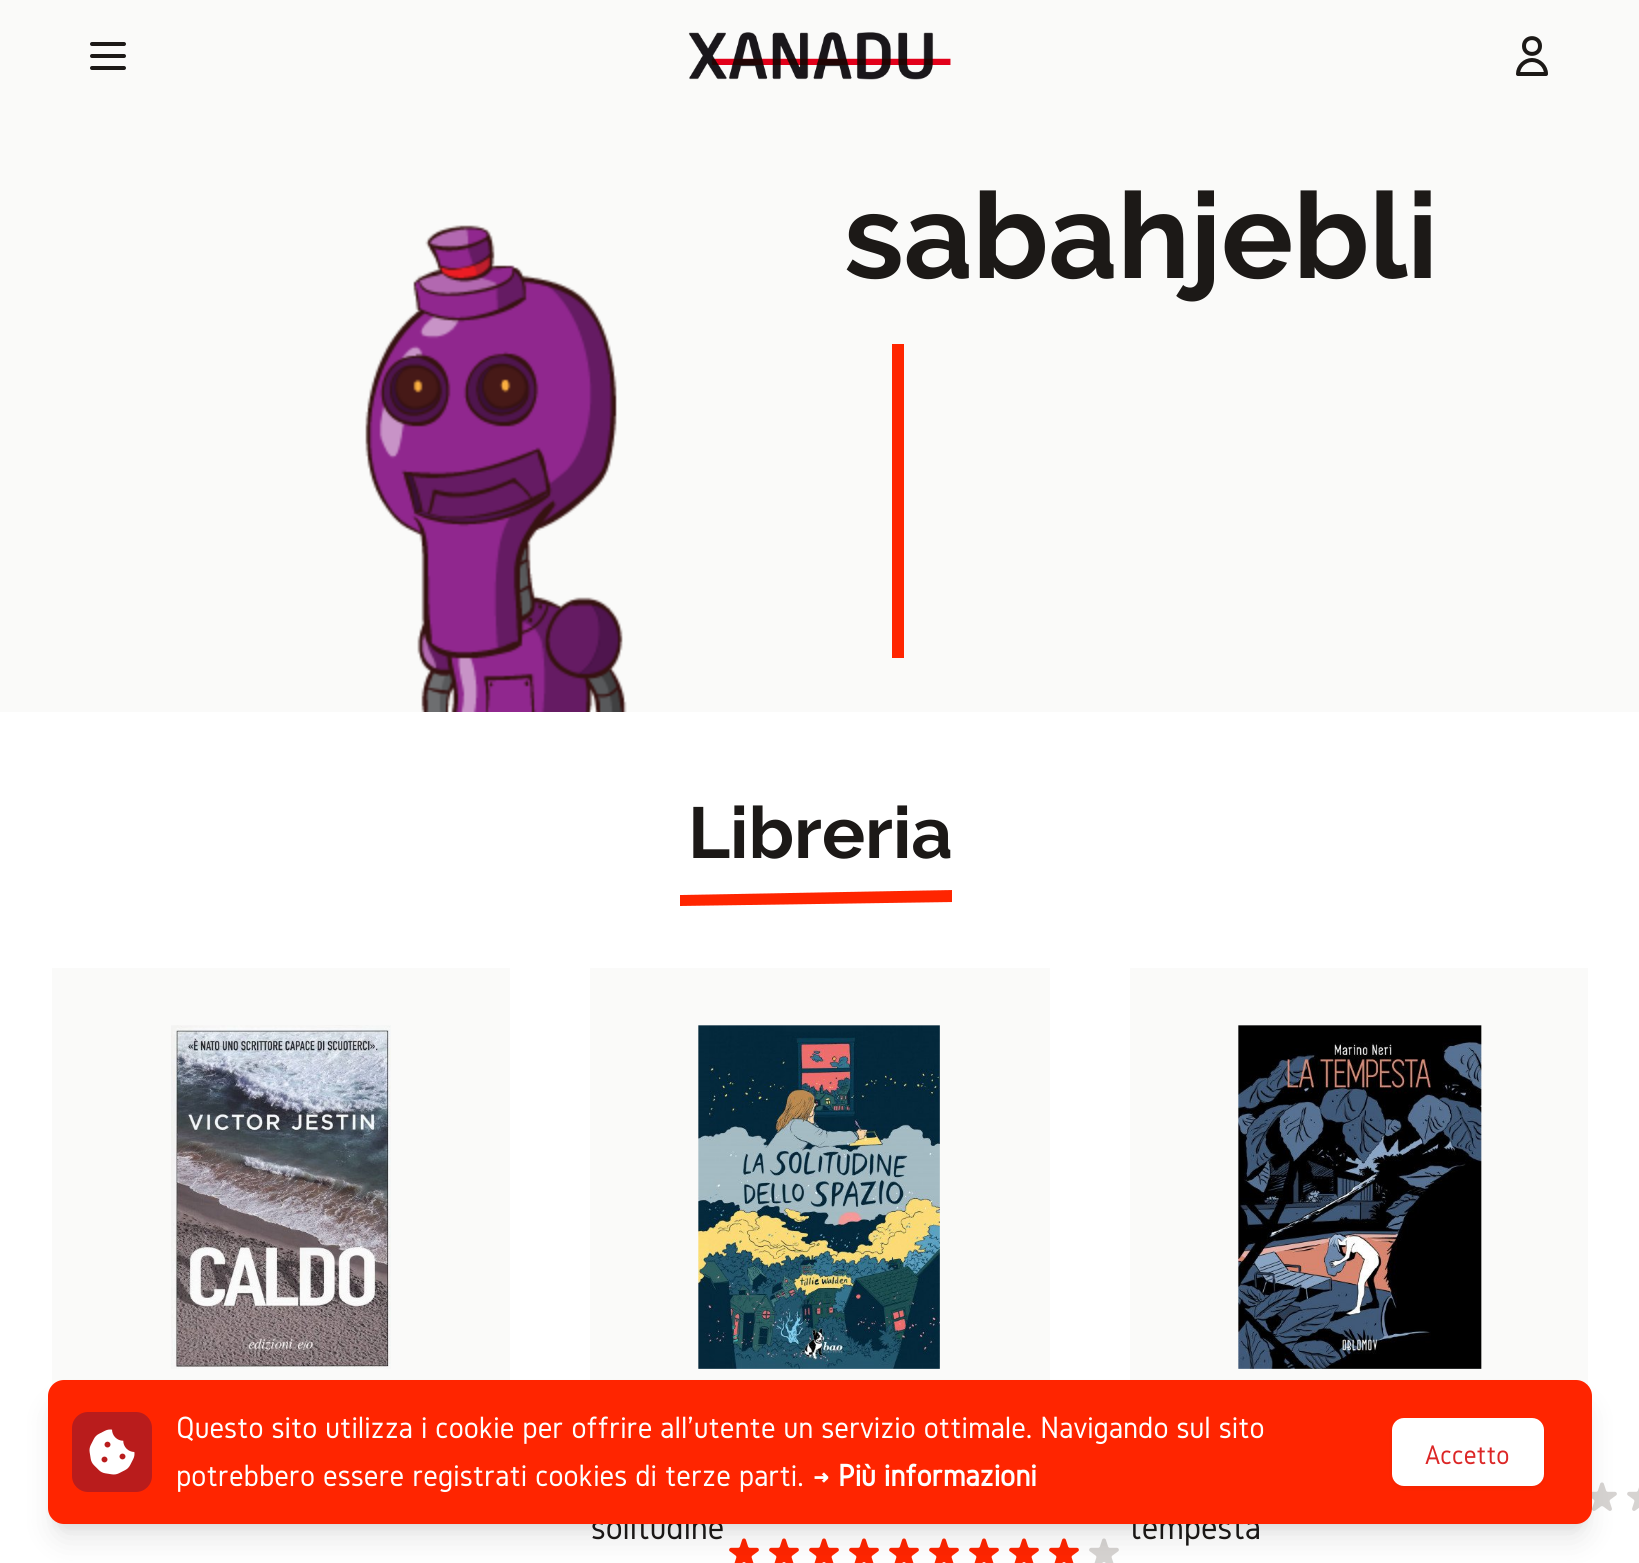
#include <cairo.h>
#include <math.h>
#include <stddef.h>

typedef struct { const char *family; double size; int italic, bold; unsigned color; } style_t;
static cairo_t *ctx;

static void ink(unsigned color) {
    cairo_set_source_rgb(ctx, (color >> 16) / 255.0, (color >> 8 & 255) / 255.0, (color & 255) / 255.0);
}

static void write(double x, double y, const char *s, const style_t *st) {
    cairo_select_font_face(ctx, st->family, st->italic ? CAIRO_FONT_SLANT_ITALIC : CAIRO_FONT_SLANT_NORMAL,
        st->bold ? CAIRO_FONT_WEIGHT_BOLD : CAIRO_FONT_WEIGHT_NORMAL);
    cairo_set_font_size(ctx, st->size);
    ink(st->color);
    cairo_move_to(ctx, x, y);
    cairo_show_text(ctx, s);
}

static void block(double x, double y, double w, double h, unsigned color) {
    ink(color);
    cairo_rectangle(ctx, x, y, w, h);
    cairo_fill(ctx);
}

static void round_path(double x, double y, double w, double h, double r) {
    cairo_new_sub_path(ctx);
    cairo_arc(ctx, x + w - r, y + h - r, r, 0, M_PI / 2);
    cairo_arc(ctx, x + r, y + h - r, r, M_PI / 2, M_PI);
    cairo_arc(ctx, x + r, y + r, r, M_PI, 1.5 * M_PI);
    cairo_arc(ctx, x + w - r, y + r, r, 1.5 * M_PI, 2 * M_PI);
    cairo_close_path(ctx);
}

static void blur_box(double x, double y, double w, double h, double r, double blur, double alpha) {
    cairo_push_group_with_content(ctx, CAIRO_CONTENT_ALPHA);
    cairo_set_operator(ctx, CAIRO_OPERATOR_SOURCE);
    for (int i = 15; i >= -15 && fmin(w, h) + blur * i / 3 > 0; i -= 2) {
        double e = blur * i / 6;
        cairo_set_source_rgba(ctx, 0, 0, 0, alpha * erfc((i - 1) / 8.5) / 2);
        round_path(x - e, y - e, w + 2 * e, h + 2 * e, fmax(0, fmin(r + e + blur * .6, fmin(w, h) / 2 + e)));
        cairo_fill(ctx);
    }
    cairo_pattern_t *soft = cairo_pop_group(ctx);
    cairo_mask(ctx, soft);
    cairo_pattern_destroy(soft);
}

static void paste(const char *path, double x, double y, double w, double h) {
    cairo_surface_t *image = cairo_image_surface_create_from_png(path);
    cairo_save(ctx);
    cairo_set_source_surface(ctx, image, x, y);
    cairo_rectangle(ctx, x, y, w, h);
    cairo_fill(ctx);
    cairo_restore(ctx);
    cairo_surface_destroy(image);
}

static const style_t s1 = {"Raleway", 120, 0, 1, 0x1c1917};
static const style_t s2 = {"Raleway", 72, 0, 1, 0x1c1917};
static const style_t s3 = {"Gidole", 36, 0, 0, 0x1c1917};
static const style_t s4 = {"Gidole", 32, 0, 0, 0xffffff};
static const style_t s5 = {"Gidole", 32, 0, 1, 0xffffff};
static const style_t s6 = {"Gidole", 28, 0, 0, 0xdc2626};

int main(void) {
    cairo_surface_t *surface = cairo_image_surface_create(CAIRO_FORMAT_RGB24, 1639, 1563);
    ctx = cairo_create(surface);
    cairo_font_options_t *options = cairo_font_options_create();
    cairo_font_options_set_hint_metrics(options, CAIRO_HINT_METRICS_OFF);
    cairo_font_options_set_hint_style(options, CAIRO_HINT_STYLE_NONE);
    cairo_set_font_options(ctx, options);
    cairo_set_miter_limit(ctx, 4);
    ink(0xfafaf9);
    cairo_paint(ctx);
    cairo_new_path(ctx);
    cairo_move_to(ctx, 92, 44);
    cairo_line_to(ctx, 124, 44);
    cairo_move_to(ctx, 92, 56);
    cairo_line_to(ctx, 124, 56);
    cairo_move_to(ctx, 92, 68);
    cairo_line_to(ctx, 124, 68);
    ink(0x1c1917);
    cairo_set_line_width(ctx, 4);
    cairo_set_line_cap(ctx, CAIRO_LINE_CAP_ROUND);
    cairo_set_line_join(ctx, CAIRO_LINE_JOIN_ROUND);
    cairo_stroke(ctx);
    paste("pic1.png", 688, 32, 263, 48);
    cairo_new_path(ctx);
    cairo_move_to(ctx, 1540, 46);
    cairo_curve_to(ctx, 1540, 56.5, 1524, 56.5, 1524, 46);
    cairo_curve_to(ctx, 1524, 35.5, 1540, 35.5, 1540, 46);
    cairo_close_path(ctx);
    cairo_move_to(ctx, 1532, 60);
    cairo_curve_to(ctx, 1524.5, 60, 1518, 66.5, 1518, 74);
    cairo_line_to(ctx, 1546, 74);
    cairo_curve_to(ctx, 1546, 66.5, 1539.5, 60, 1532, 60);
    cairo_close_path(ctx);
    cairo_stroke(ctx);
    paste("pic2.png", 365, 225, 262, 487);
    write(844, 278, "sabahjebli", &s1);
    block(892, 344, 12, 314, 0xff2500);
    block(0, 712, 1639, 851, 0xffffff);
    write(688, 858, "Libreria", &s2);
    ink(0xff2500);
    cairo_new_path(ctx);
    cairo_move_to(ctx, 680, 895);
    cairo_line_to(ctx, 952, 890);
    cairo_line_to(ctx, 952, 902);
    cairo_line_to(ctx, 680, 906);
    cairo_close_path(ctx);
    cairo_fill(ctx);
    block(52, 968, 458, 418, 0xfafaf9);
    paste("pic3.png", 171, 1025, 220, 344);
    block(590, 968, 460, 412, 0xfafaf9);
    paste("pic4.png", 698, 1025, 242, 344);
    write(591, 1539, "solitudine", &s3);
    paste("pic5.png", 729, 1538, 30, 25);
    paste("pic5.png", 769, 1538, 30, 25);
    paste("pic5.png", 809, 1538, 30, 25);
    paste("pic5.png", 849, 1538, 30, 25);
    paste("pic5.png", 889, 1538, 30, 25);
    paste("pic5.png", 929, 1538, 30, 25);
    paste("pic5.png", 969, 1538, 30, 25);
    paste("pic5.png", 1009, 1538, 30, 25);
    paste("pic5.png", 1049, 1538, 30, 25);
    paste("pic6.png", 1089, 1538, 30, 25);
    block(1130, 968, 458, 418, 0xfafaf9);
    paste("pic7.png", 1238, 1025, 244, 344);
    paste("pic8.png", 1592, 1482, 25, 29);
    paste("pic9.png", 1627, 1487, 12, 24);
    write(1129, 1539, "tempesta", &s3);
    ink(0x000000);
    blur_box(56, 1396, 1528, 128, 8, 6, 0.1);
    blur_box(54, 1406, 1532, 132, 10, 15, 0.1);
    ink(0xff2500);
    round_path(48, 1380, 1544, 144, 16);
    cairo_fill(ctx);
    ink(0xb91c1c);
    round_path(72, 1412, 80, 80, 16);
    cairo_fill(ctx);
    paste("pic10.png", 89, 1429, 46, 46);
    write(176, 1438, "Questo sito utilizza i cookie per offrire all'utente un servizio ottimale. Navigando sul sito", &s4);
    write(176, 1486, "potrebbero essere registrati cookies di terze parti.", &s4);
    write(812, 1486, "→ Più informazioni", &s5);
    ink(0x000000);
    blur_box(1392, 1420, 152, 68, 12, 2, 0.05);
    ink(0xffffff);
    round_path(1392, 1418, 152, 68, 12);
    cairo_fill(ctx);
    write(1425, 1464, "Accetto", &s6);
    cairo_surface_write_to_png(surface, "screenshot.png");
    cairo_font_options_destroy(options);
    cairo_destroy(ctx);
    cairo_surface_destroy(surface);
    return 0;
}
